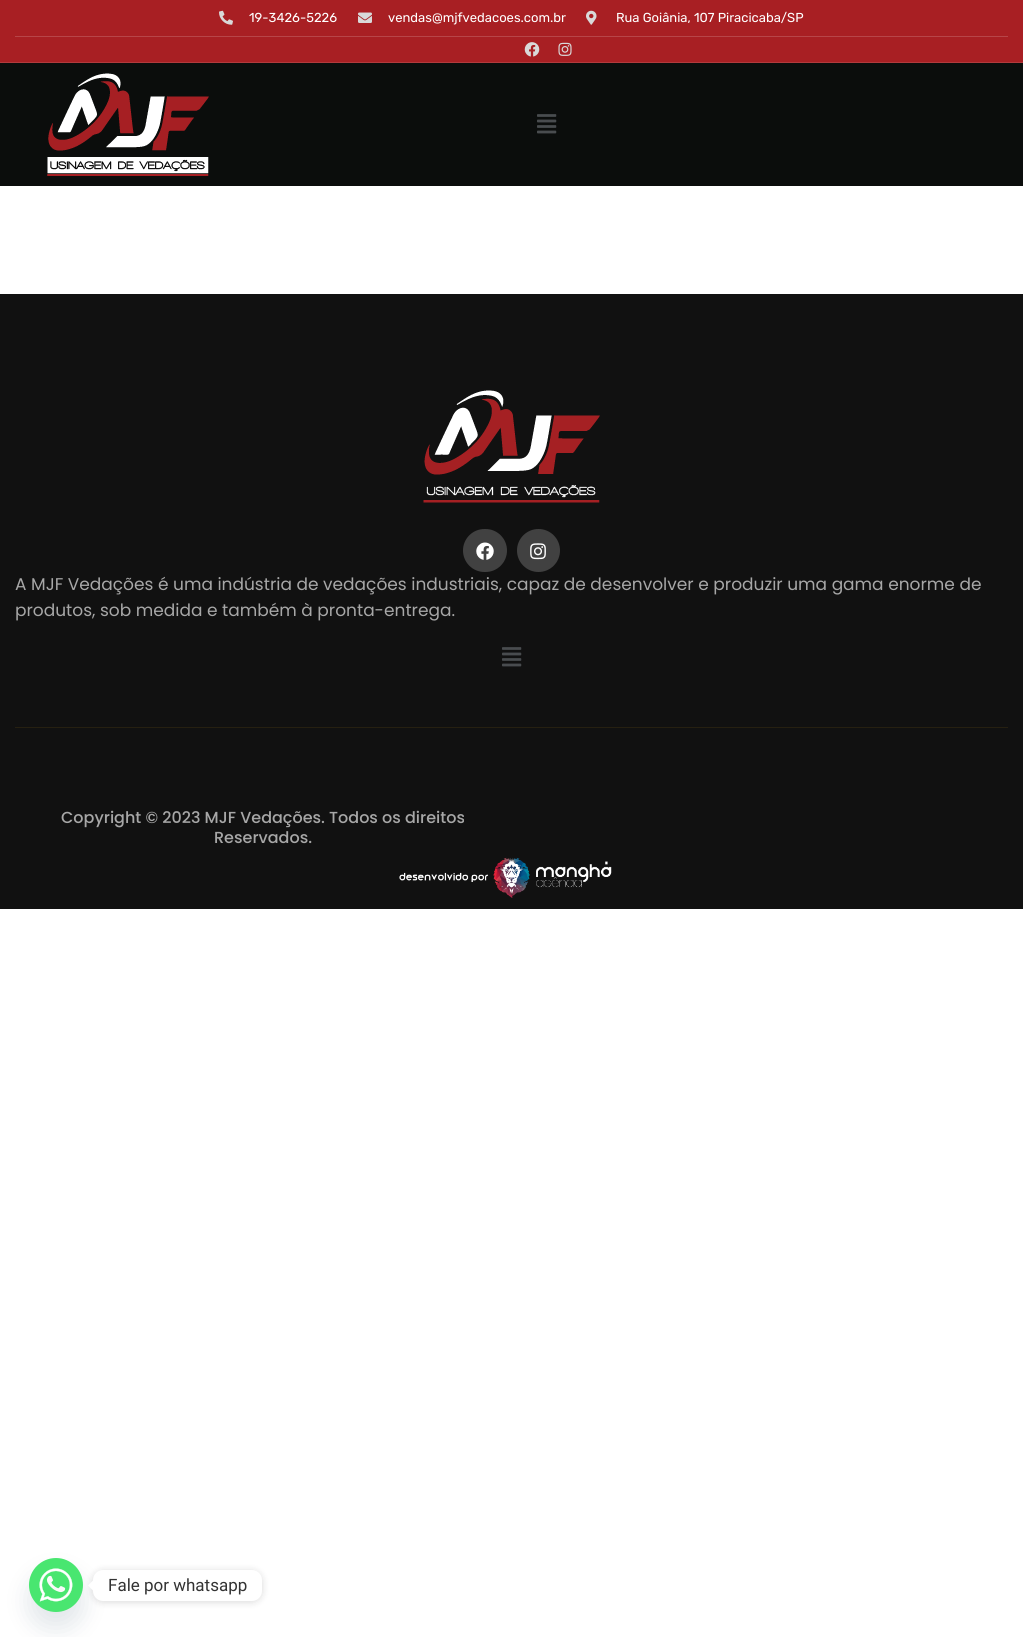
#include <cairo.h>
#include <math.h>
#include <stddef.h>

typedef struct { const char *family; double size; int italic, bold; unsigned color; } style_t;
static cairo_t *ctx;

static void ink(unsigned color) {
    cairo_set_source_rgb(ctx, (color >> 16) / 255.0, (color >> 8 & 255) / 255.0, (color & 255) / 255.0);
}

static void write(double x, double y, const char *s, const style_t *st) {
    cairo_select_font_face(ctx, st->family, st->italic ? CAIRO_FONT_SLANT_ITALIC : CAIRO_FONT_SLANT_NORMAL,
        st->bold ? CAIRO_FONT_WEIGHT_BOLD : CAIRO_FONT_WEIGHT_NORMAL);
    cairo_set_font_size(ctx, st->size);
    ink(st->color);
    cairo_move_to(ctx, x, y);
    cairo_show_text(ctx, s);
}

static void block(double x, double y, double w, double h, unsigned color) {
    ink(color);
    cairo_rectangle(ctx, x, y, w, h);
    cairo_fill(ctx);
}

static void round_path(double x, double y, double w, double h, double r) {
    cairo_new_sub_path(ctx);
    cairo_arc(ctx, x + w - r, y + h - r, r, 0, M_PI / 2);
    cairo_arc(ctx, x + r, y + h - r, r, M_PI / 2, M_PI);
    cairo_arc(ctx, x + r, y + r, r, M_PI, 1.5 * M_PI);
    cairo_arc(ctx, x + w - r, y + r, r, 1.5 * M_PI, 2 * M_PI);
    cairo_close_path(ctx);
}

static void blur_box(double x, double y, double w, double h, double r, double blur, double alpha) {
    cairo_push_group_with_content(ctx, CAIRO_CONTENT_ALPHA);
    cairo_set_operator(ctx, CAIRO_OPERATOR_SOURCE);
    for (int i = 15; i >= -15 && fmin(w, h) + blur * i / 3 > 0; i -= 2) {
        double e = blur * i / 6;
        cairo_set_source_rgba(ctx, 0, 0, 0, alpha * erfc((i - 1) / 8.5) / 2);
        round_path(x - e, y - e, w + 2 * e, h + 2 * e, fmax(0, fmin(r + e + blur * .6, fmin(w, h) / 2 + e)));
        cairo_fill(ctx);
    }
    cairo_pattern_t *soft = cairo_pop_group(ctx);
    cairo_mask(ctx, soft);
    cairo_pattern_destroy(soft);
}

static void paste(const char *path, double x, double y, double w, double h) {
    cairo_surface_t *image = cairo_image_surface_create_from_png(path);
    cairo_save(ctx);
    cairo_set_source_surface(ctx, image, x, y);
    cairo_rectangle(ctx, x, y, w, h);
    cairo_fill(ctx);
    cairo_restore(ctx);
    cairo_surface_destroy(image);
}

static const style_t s1 = {"Rubik", 13, 0, 0, 0xffffff};
static const style_t s2 = {"Poppins", 17, 0, 0, 0xa7a7a7};
static const style_t s3 = {"Poppins Medium", 16, 0, 0, 0xa7a7a7};
static const style_t s4 = {"Roboto", 17, 0, 0, 0x333333};

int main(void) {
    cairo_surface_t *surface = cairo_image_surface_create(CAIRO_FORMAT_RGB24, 1023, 1637);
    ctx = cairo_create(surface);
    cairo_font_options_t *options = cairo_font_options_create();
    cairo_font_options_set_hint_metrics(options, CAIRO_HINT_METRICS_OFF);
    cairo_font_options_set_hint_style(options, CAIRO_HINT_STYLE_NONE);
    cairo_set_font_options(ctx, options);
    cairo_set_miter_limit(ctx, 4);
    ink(0xffffff);
    cairo_paint(ctx);
    block(0, 0, 1023, 62, 0xa81f23);
    block(0, 62, 1023, 1, 0xb23a3d);
    block(15, 36, 993, 1, 0xb74548);
    paste("pic1.png", 219, 10, 14, 15);
    write(249, 22, "19-3426-5226", &s1);
    paste("pic2.png", 358, 12, 14, 11);
    write(388, 22, "vendas@mjfvedacoes.com.br", &s1);
    paste("pic3.png", 586, 10, 11, 15);
    write(616, 22, "Rua Goiânia, 107 Piracicaba/SP", &s1);
    paste("pic4.png", 524, 42, 16, 15);
    paste("pic5.png", 558, 42, 14, 14);
    block(0, 63, 1023, 123, 0x0b0d0c);
    paste("pic6.png", 47, 73, 162, 103);
    paste("pic7.png", 537, 114, 20, 20);
    block(0, 294, 1023, 615, 0x111111);
    block(15, 727, 993, 1, 0x262011);
    paste("pic8.png", 423, 390, 177, 113);
    ink(0x414141);
    round_path(463, 529, 44, 43, 21.5);
    cairo_fill(ctx);
    paste("pic9.png", 476, 542, 18, 18);
    cairo_arc(ctx, 538.5, 550.5, 21.5, 0, 2 * M_PI);
    cairo_fill(ctx);
    paste("pic10.png", 530, 543, 16, 17);
    write(15, 590, "A MJF Vedações é uma indústria de vedações industriais, capaz de desenvolver e produzir uma gama enorme de", &s2);
    write(15, 616, "produtos, sob medida e também à pronta-entrega.", &s2);
    paste("pic11.png", 502, 647, 20, 20);
    write(61, 823, "Copyright © 2023 MJF Vedações. Todos os direitos", &s3);
    write(214, 843, "Reservados.", &s3);
    paste("pic12.png", 399, 857, 213, 41);
    ink(0x49687e);
    blur_box(29, 1574, 54, 54, 27, 12, 0.16);
    paste("pic13.png", 29, 1558, 54, 54);
    ink(0x000000);
    blur_box(93, 1571, 169, 31, 10, 4, 0.15);
    ink(0xffffff);
    round_path(93, 1570, 169, 31, 10);
    cairo_fill(ctx);
    cairo_new_path(ctx);
    cairo_move_to(ctx, 93, 1580.5);
    cairo_line_to(ctx, 93, 1590.5);
    cairo_line_to(ctx, 88, 1585.5);
    cairo_close_path(ctx);
    cairo_fill(ctx);
    write(108, 1591, "Fale por whatsapp", &s4);
    cairo_surface_write_to_png(surface, "screenshot.png");
    cairo_font_options_destroy(options);
    cairo_destroy(ctx);
    cairo_surface_destroy(surface);
    return 0;
}
